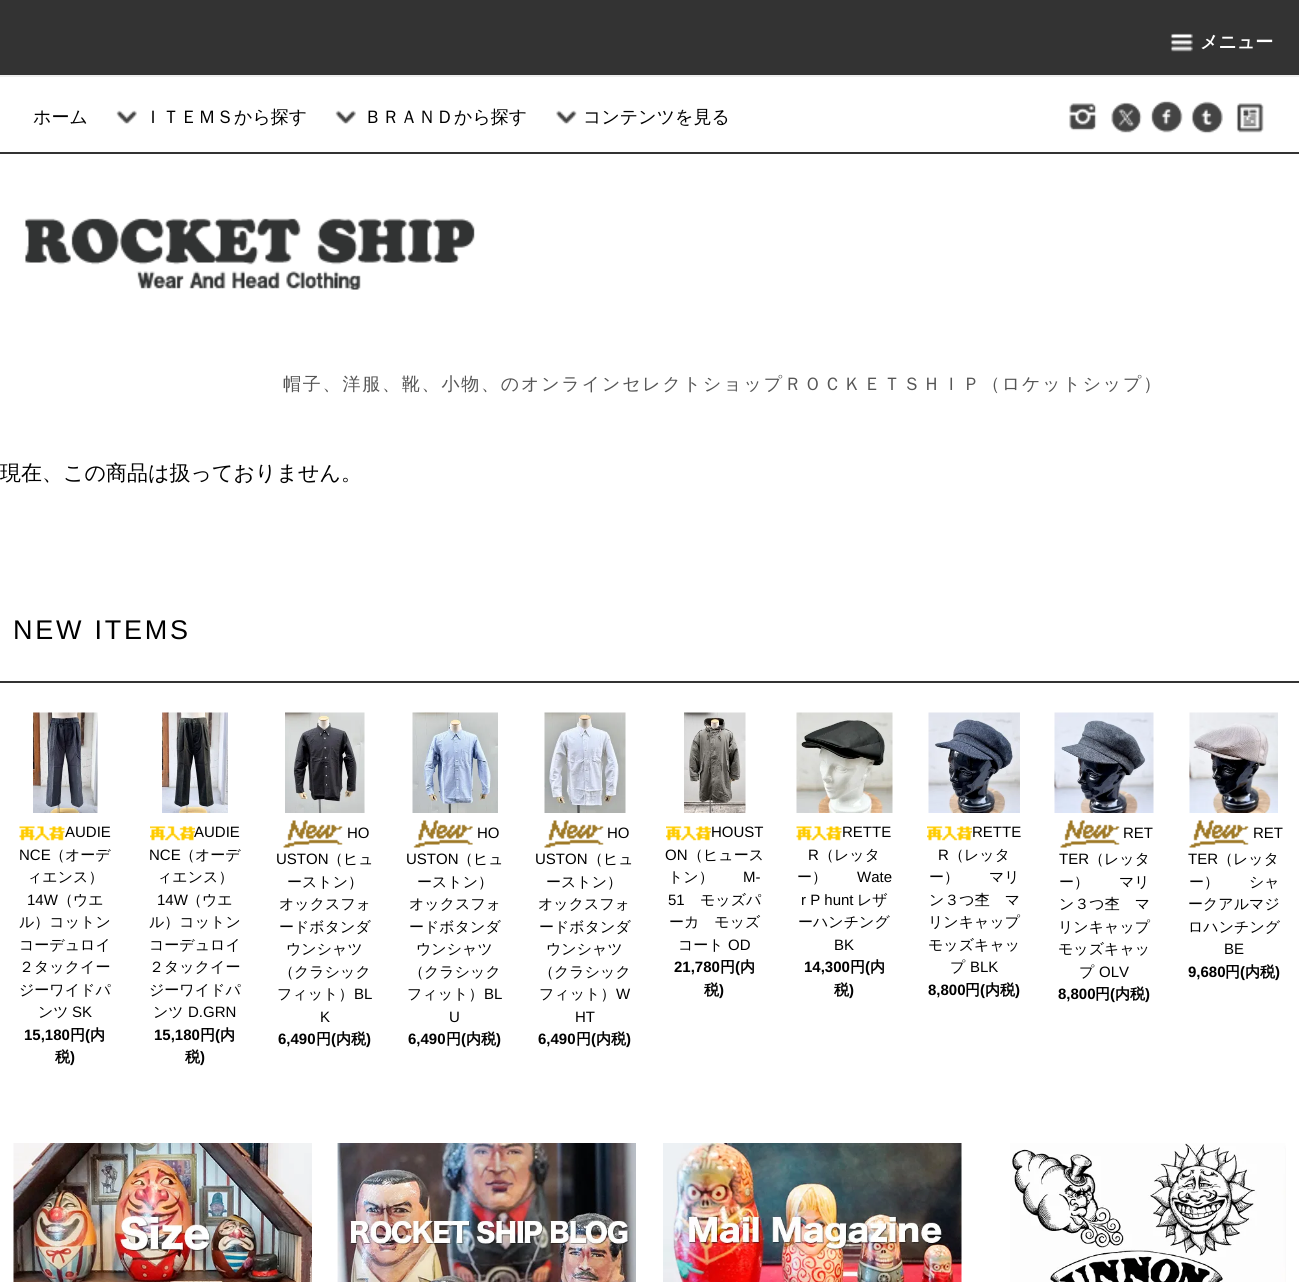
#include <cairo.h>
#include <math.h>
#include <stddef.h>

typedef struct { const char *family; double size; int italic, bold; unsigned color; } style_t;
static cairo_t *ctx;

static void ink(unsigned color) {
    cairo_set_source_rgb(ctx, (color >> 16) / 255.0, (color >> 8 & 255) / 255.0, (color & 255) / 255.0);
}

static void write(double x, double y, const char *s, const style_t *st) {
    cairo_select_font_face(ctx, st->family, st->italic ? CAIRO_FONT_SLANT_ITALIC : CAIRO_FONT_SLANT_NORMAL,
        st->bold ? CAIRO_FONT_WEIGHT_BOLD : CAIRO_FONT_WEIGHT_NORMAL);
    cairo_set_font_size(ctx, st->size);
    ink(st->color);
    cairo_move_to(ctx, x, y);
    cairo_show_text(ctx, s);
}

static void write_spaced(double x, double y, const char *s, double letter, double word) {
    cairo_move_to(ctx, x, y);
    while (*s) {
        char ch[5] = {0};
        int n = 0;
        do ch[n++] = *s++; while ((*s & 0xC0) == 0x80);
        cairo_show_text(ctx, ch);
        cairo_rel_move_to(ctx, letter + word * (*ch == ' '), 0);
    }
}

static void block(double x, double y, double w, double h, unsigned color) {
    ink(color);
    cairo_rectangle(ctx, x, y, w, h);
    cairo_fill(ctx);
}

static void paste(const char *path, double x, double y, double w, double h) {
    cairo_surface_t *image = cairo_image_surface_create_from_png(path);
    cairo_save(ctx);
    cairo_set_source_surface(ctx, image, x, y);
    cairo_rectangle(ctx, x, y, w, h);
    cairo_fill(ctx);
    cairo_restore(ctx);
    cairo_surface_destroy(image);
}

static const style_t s1 = {"WenQuanYi Zen Hei", 18, 0, 1, 0xffffff};
static const style_t s2 = {"WenQuanYi Zen Hei Medium", 18, 0, 0, 0x000000};
static const style_t s3 = {"WenQuanYi Zen Hei Medium", 21, 0, 0, 0x000000};
static const style_t s4 = {"Liberation Sans", 15, 0, 0, 0x000000};
static const style_t s5 = {"WenQuanYi Zen Hei Medium", 15, 0, 0, 0x000000};
static const style_t s6 = {"Liberation Sans", 15, 0, 1, 0x000000};
static const style_t s7 = {"WenQuanYi Zen Hei", 15, 0, 1, 0x000000};

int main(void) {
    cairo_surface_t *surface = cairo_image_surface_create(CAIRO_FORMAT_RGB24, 1299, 1282);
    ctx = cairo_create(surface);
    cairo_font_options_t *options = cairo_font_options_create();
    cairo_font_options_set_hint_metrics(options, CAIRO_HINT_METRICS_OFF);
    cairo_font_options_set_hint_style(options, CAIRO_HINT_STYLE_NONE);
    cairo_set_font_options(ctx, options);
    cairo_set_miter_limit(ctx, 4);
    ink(0xffffff);
    cairo_paint(ctx);
    block(0, 0, 1299, 75, 0x333333);
    block(0, 75, 1299, 2, 0xeeeeee);
    paste("pic1.png", 1170, 33, 23, 19);
    write(1200, 48, "メニュー", &s1);
    block(0, 152, 1299, 2, 0x333333);
    write(33, 123, "ホーム", &s2);
    paste("pic2.png", 116, 110, 21, 14);
    write(144, 123, "ＩＴＥＭＳから探す", &s2);
    paste("pic3.png", 335, 110, 21, 14);
    write(364, 123, "ＢＲＡＮＤから探す", &s2);
    paste("pic4.png", 556, 110, 21, 15);
    write(583, 123, "コンテンツを見る", &s2);
    paste("pic5.png", 1069, 103, 28, 28);
    paste("pic6.png", 1111, 102, 31, 31);
    paste("pic7.png", 1150, 100, 33, 33);
    paste("pic8.png", 1191, 101, 32, 33);
    paste("pic9.png", 1236, 103, 28, 30);
    paste("pic10.png", 25, 218, 450, 72);
    ink(0x555555);
    write_spaced(283, 390, "帽子、洋服、靴、小物、のオンラインセレクトショップＲＯＣＫＥＴＳＨＩＰ（ロケットシップ）", 1.8, 0);
    write(0, 480, "現在、この商品は扱っておりません。", &s3);
    block(0, 681, 1299, 2, 0x333333);
    cairo_select_font_face(ctx, "Liberation Sans", CAIRO_FONT_SLANT_NORMAL, CAIRO_FONT_WEIGHT_NORMAL);
    cairo_set_font_size(ctx, 27);
    ink(0x000000);
    write_spaced(13, 639, "NEW ITEMS", 2.75, 0);
    paste("pic11.png", 33, 712, 65, 101);
    paste("pic12.png", 19, 826, 46, 15);
    write(65, 837, "AUDIE", &s4);
    write(19, 860, "NCE", &s4);
    write(50, 860, "（オーデ", &s5);
    write(27, 882, "ィエンス）", &s5);
    write(27, 905, "14W", &s4);
    write(58, 905, "（ウエ", &s5);
    write(19, 927, "ル）コットン", &s5);
    write(19, 950, "コーデュロイ", &s5);
    write(19, 972, "２タックイー", &s5);
    write(19, 995, "ジーワイドパ", &s5);
    write(38, 1017, "ンツ", &s5);
    write(72, 1017, "SK", &s4);
    write(24, 1040, "15,180", &s6);
    write(70, 1040, "円", &s7);
    write(85, 1040, "(", &s6);
    write(90, 1040, "内", &s7);
    write(55, 1062, "税", &s7);
    write(70, 1062, ")", &s6);
    paste("pic13.png", 162, 712, 66, 101);
    paste("pic14.png", 150, 826, 45, 15);
    write(194, 837, "AUDIE", &s4);
    write(149, 860, "NCE", &s4);
    write(180, 860, "（オーデ", &s5);
    write(157, 882, "ィエンス）", &s5);
    write(157, 905, "14W", &s4);
    write(187, 905, "（ウエ", &s5);
    write(149, 927, "ル）コットン", &s5);
    write(149, 950, "コーデュロイ", &s5);
    write(149, 972, "２タックイー", &s5);
    write(149, 995, "ジーワイドパ", &s5);
    write(153, 1017, "ンツ", &s5);
    write(188, 1017, "D.GRN", &s4);
    write(154, 1040, "15,180", &s6);
    write(200, 1040, "円", &s7);
    write(215, 1040, "(", &s6);
    write(220, 1040, "内", &s7);
    write(185, 1062, "税", &s7);
    write(200, 1062, ")", &s6);
    paste("pic15.png", 285, 712, 80, 101);
    paste("pic16.png", 283, 820, 60, 28);
    write(347, 838, "HO", &s4);
    write(276, 864, "USTON", &s4);
    write(328, 864, "（ヒュ", &s5);
    write(287, 887, "ーストン）", &s5);
    write(279, 909, "オックスフォ", &s5);
    write(279, 932, "ードボタンダ", &s5);
    write(286, 954, "ウンシャツ", &s5);
    write(279, 977, "（クラシック", &s5);
    write(277, 999, "フィット）", &s5);
    write(354, 999, "BL", &s4);
    write(320, 1022, "K", &s4);
    write(278, 1044, "6,490", &s6);
    write(316, 1044, "円", &s7);
    write(331, 1044, "(", &s6);
    write(336, 1044, "内税", &s7);
    write(366, 1044, ")", &s6);
    paste("pic17.png", 412, 712, 86, 101);
    paste("pic18.png", 413, 820, 60, 28);
    write(477, 838, "HO", &s4);
    write(406, 864, "USTON", &s4);
    write(458, 864, "（ヒュ", &s5);
    write(417, 887, "ーストン）", &s5);
    write(409, 909, "オックスフォ", &s5);
    write(409, 932, "ードボタンダ", &s5);
    write(416, 954, "ウンシャツ", &s5);
    write(409, 977, "（クラシック", &s5);
    write(407, 999, "フィット）", &s5);
    write(484, 999, "BL", &s4);
    write(449, 1022, "U", &s4);
    write(408, 1044, "6,490", &s6);
    write(446, 1044, "円", &s7);
    write(461, 1044, "(", &s6);
    write(466, 1044, "内税", &s7);
    write(496, 1044, ")", &s6);
    paste("pic19.png", 544, 712, 82, 101);
    paste("pic20.png", 544, 820, 60, 28);
    write(607, 838, "HO", &s4);
    write(535, 864, "USTON", &s4);
    write(588, 864, "（ヒュ", &s5);
    write(546, 887, "ーストン）", &s5);
    write(538, 909, "オックスフォ", &s5);
    write(539, 932, "ードボタンダ", &s5);
    write(546, 954, "ウンシャツ", &s5);
    write(539, 977, "（クラシック", &s5);
    write(539, 999, "フィット）", &s5);
    write(616, 999, "W", &s4);
    write(575, 1022, "HT", &s4);
    write(538, 1044, "6,490", &s6);
    write(576, 1044, "円", &s7);
    write(591, 1044, "(", &s6);
    write(596, 1044, "内税", &s7);
    write(626, 1044, ")", &s6);
    paste("pic21.png", 684, 712, 62, 101);
    paste("pic14.png", 666, 826, 45, 15);
    write(711, 837, "HOUST", &s4);
    write(665, 860, "ON", &s4);
    write(688, 860, "（ヒュース", &s5);
    write(668, 882, "トン）", &s5);
    write(743, 882, "M-", &s4);
    write(668, 905, "51", &s4);
    write(700, 905, "モッズパ", &s5);
    write(669, 927, "ーカ　モッズ", &s5);
    write(678, 950, "コート", &s5);
    write(728, 950, "OD", &s4);
    write(674, 972, "21,780", &s6);
    write(720, 972, "円", &s7);
    write(735, 972, "(", &s6);
    write(740, 972, "内", &s7);
    write(704, 995, "税", &s7);
    write(719, 995, ")", &s6);
    paste("pic22.png", 796, 712, 97, 101);
    paste("pic12.png", 796, 826, 46, 15);
    write(842, 837, "RETTE", &s4);
    write(808, 860, "R", &s4);
    write(819, 860, "（レッタ", &s5);
    write(797, 882, "ー）", &s5);
    write(857, 882, "Wate", &s4);
    write(801, 905, "r P hunt", &s4);
    write(857, 905, "レザ", &s5);
    write(798, 927, "ーハンチング", &s5);
    write(834, 950, "BK", &s4);
    write(804, 972, "14,300", &s6);
    write(850, 972, "円", &s7);
    write(865, 972, "(", &s6);
    write(870, 972, "内", &s7);
    write(834, 995, "税", &s7);
    write(849, 995, ")", &s6);
    paste("pic23.png", 928, 712, 92, 101);
    paste("pic14.png", 927, 826, 45, 15);
    write(972, 837, "RETTE", &s4);
    write(938, 860, "R", &s4);
    write(949, 860, "（レッタ", &s5);
    write(929, 882, "ー）　　マリ", &s5);
    write(929, 905, "ン３つ杢　マ", &s5);
    write(928, 927, "リンキャップ", &s5);
    write(928, 950, "モッズキャッ", &s5);
    write(950, 972, "プ", &s5);
    write(970, 972, "BLK", &s4);
    write(928, 995, "8,800", &s6);
    write(965, 995, "円", &s7);
    write(980, 995, "(", &s6);
    write(985, 995, "内税", &s7);
    write(1015, 995, ")", &s6);
    paste("pic24.png", 1054, 712, 100, 101);
    paste("pic16.png", 1060, 820, 60, 28);
    write(1123, 838, "RET", &s4);
    write(1059, 864, "TER", &s4);
    write(1089, 864, "（レッタ", &s5);
    write(1059, 887, "ー）　　マリ", &s5);
    write(1059, 909, "ン３つ杢　マ", &s5);
    write(1058, 932, "リンキャップ", &s5);
    write(1058, 954, "モッズキャッ", &s5);
    write(1079, 977, "プ", &s5);
    write(1099, 977, "OLV", &s4);
    write(1058, 999, "8,800", &s6);
    write(1095, 999, "円", &s7);
    write(1110, 999, "(", &s6);
    write(1115, 999, "内税", &s7);
    write(1145, 999, ")", &s6);
    paste("pic25.png", 1189, 712, 89, 101);
    paste("pic16.png", 1189, 820, 60, 28);
    write(1253, 838, "RET", &s4);
    write(1188, 864, "TER", &s4);
    write(1218, 864, "（レッタ", &s5);
    write(1189, 887, "ー）　　シャ", &s5);
    write(1188, 909, "ークアルマジ", &s5);
    write(1188, 932, "ロハンチング", &s5);
    write(1224, 954, "BE", &s4);
    write(1188, 977, "9,680", &s6);
    write(1225, 977, "円", &s7);
    write(1240, 977, "(", &s6);
    write(1245, 977, "内税", &s7);
    write(1275, 977, ")", &s6);
    paste("pic26.png", 13, 1143, 299, 139);
    paste("pic27.png", 337, 1143, 299, 139);
    paste("pic28.png", 663, 1143, 299, 139);
    paste("pic29.png", 1010, 1143, 276, 139);
    cairo_surface_write_to_png(surface, "screenshot.png");
    cairo_font_options_destroy(options);
    cairo_destroy(ctx);
    cairo_surface_destroy(surface);
    return 0;
}
